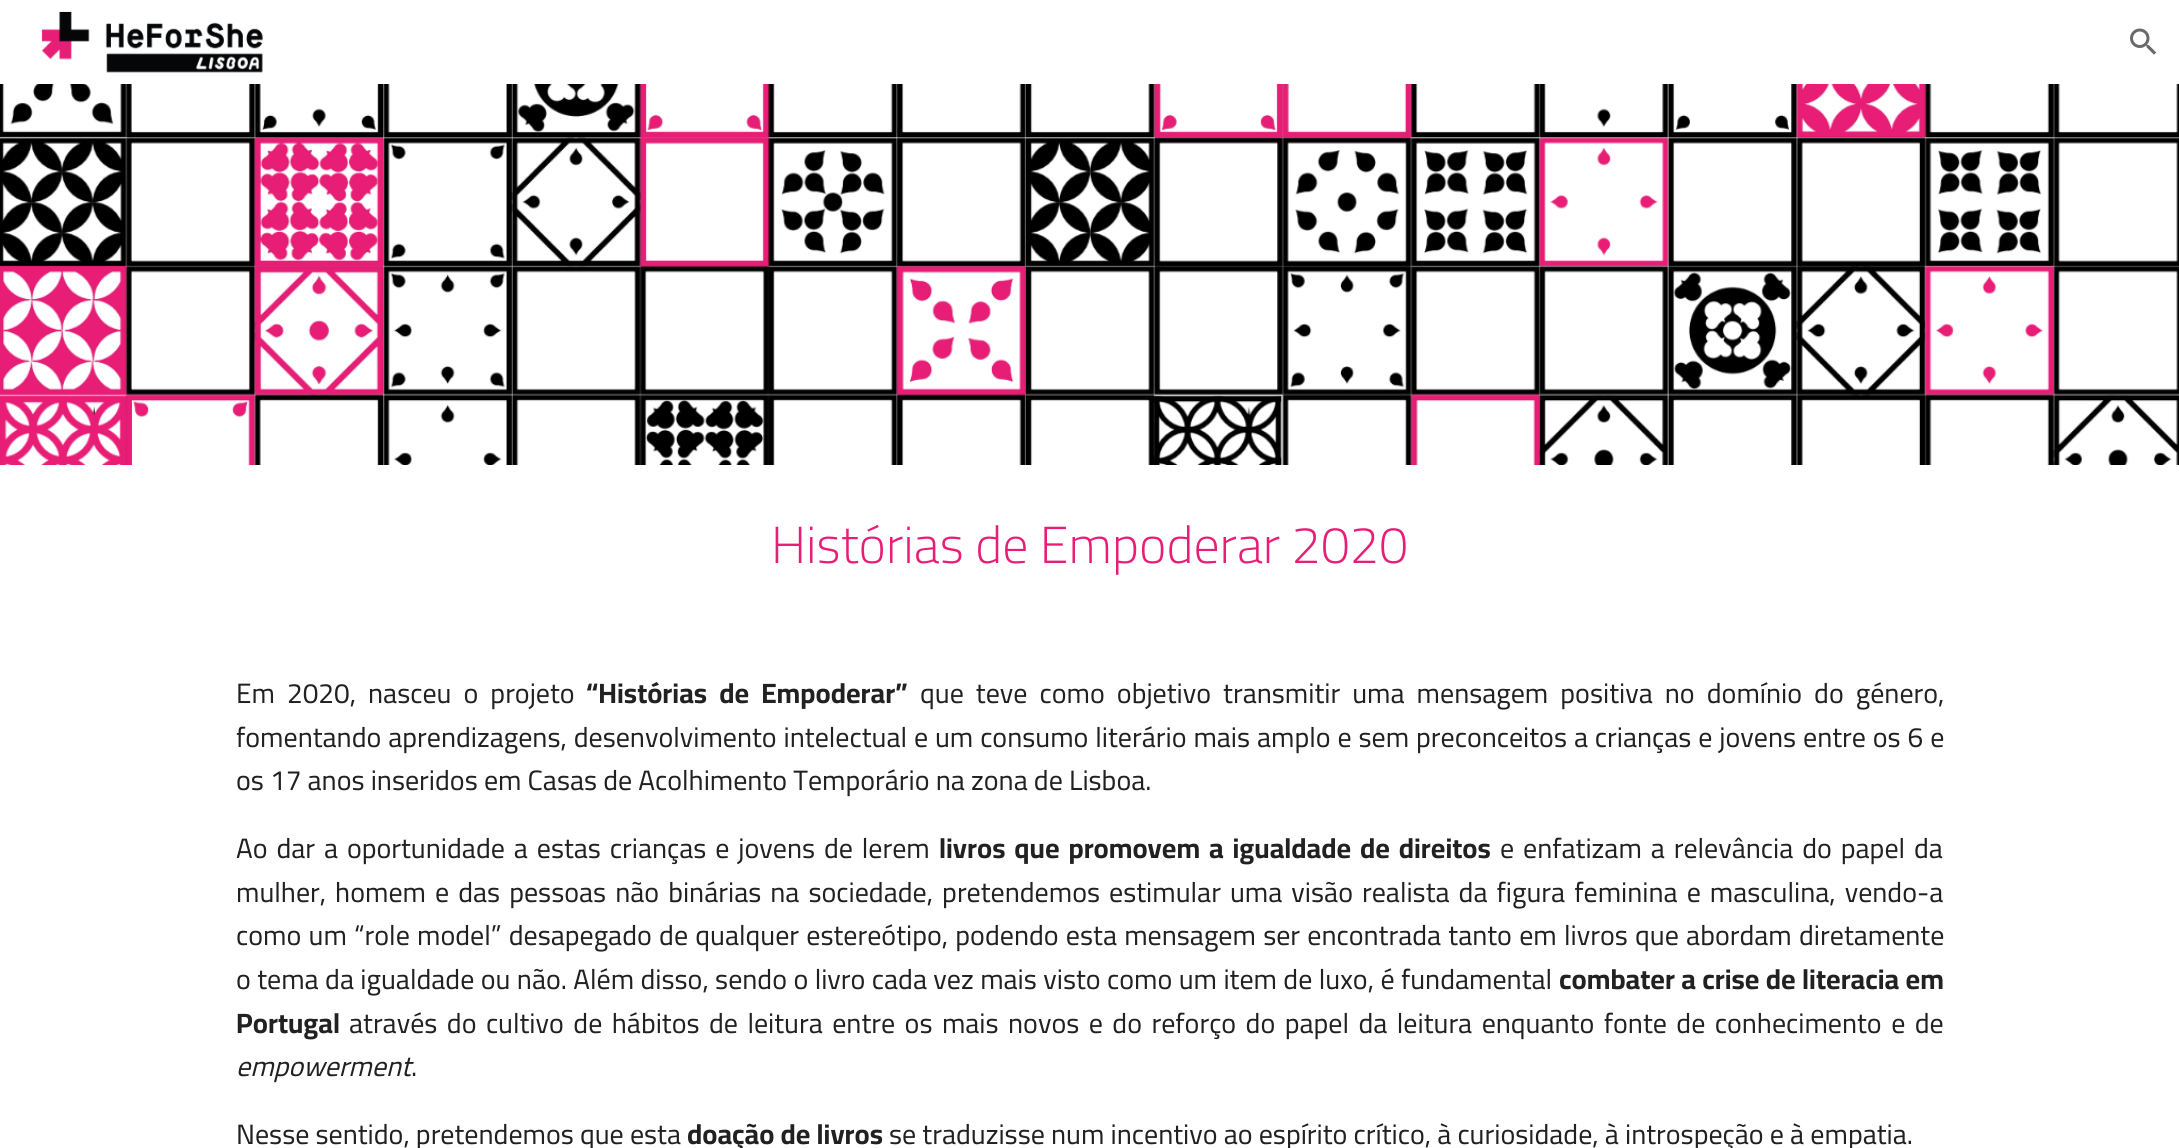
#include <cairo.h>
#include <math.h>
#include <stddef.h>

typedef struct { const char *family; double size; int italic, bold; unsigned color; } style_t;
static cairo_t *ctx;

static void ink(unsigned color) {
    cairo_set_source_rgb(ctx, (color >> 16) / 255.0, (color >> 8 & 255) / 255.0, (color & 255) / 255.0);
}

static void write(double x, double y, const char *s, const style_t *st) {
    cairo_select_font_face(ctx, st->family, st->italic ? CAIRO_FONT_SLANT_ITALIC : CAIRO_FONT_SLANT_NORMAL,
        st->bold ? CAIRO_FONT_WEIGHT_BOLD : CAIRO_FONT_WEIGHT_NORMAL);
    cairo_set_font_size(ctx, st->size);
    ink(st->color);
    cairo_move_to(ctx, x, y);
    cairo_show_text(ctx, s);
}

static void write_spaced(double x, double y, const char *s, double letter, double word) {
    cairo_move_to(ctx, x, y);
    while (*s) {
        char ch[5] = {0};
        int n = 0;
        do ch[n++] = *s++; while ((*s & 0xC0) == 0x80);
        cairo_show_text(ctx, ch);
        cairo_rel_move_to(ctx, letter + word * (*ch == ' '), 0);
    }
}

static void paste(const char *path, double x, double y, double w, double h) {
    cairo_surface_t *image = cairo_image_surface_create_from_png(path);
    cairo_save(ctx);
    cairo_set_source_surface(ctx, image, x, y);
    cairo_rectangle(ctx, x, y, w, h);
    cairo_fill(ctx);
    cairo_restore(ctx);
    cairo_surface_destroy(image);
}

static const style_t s1 = {"Cairo Light", 52, 0, 0, 0xe81d76};
static const style_t s2 = {"Cairo", 28, 0, 0, 0x212121};
static const style_t s3 = {"Cairo", 28, 0, 1, 0x212121};
static const style_t s4 = {"Cairo", 28, 1, 0, 0x212121};

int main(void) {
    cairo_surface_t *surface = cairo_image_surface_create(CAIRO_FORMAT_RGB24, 2179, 1148);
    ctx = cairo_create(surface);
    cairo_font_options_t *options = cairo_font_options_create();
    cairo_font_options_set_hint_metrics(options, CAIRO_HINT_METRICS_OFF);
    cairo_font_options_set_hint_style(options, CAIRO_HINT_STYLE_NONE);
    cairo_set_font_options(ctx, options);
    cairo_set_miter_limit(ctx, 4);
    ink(0xffffff);
    cairo_paint(ctx);
    paste("pic1.png", 41, 11, 222, 62);
    paste("pic2.png", 2130, 28, 27, 27);
    paste("pic3.png", 0, 84, 2179, 381);
    write(771, 563, "Histórias de Empoderar 2020", &s1);
    cairo_select_font_face(ctx, "Cairo", CAIRO_FONT_SLANT_NORMAL, CAIRO_FONT_WEIGHT_NORMAL);
    cairo_set_font_size(ctx, 28);
    ink(0x212121);
    write_spaced(236, 703, "Em 2020, nasceu o projeto", 0, 5.9);
    cairo_select_font_face(ctx, "Cairo", CAIRO_FONT_SLANT_NORMAL, CAIRO_FONT_WEIGHT_BOLD);
    write_spaced(586, 703, "“Histórias de Empoderar”", 0, 6);
    cairo_select_font_face(ctx, "Cairo", CAIRO_FONT_SLANT_NORMAL, CAIRO_FONT_WEIGHT_NORMAL);
    write_spaced(920, 703, "que teve como objetivo transmitir uma mensagem positiva no domínio do género,", 0, 5.9);
    write_spaced(236, 747, "fomentando aprendizagens, desenvolvimento intelectual e um consumo literário mais amplo e sem preconceitos a crianças e jovens entre os 6 e", 0, 0.75);
    write(236, 790, "os 17 anos inseridos em Casas de Acolhimento Temporário na zona de Lisboa.", &s2);
    write_spaced(236, 858, "Ao dar a oportunidade a estas crianças e jovens de lerem", 0, 2.75);
    cairo_select_font_face(ctx, "Cairo", CAIRO_FONT_SLANT_NORMAL, CAIRO_FONT_WEIGHT_BOLD);
    write_spaced(939, 858, "livros que promovem a igualdade de direitos", 0, 2.75);
    cairo_select_font_face(ctx, "Cairo", CAIRO_FONT_SLANT_NORMAL, CAIRO_FONT_WEIGHT_NORMAL);
    write_spaced(1500, 858, "e enfatizam a relevância do papel da", 0, 2.75);
    write_spaced(236, 902, "mulher, homem e das pessoas não binárias na sociedade, pretendemos estimular uma visão realista da figura feminina e masculina, vendo-a", 0, 2.9);
    write_spaced(236, 945, "como um “role model” desapegado de qualquer estereótipo, podendo esta mensagem ser encontrada tanto em livros que abordam diretamente", 0, 1.1);
    write_spaced(236, 989, "o tema da igualdade ou não. Além disso, sendo o livro cada vez mais visto como um item de luxo, é fundamental", 0, 0.25);
    cairo_select_font_face(ctx, "Cairo", CAIRO_FONT_SLANT_NORMAL, CAIRO_FONT_WEIGHT_BOLD);
    write_spaced(1559, 989, "combater a crise de literacia em", 0, 0.25);
    write(236, 1033, "Portugal", &s3);
    cairo_select_font_face(ctx, "Cairo", CAIRO_FONT_SLANT_NORMAL, CAIRO_FONT_WEIGHT_NORMAL);
    write_spaced(349, 1033, "através do cultivo de hábitos de leitura entre os mais novos e do reforço do papel da leitura enquanto fonte de conhecimento e de", 0, 3.3);
    write(236, 1076, "empowerment", &s4);
    write(411, 1076, ".", &s2);
    write(236, 1144, "Nesse sentido, pretendemos que esta", &s2);
    write(687, 1144, "doação de livros", &s3);
    write(889, 1144, "se traduzisse num incentivo ao espírito crítico, à curiosidade, à introspeção e à empatia.", &s2);
    cairo_surface_write_to_png(surface, "screenshot.png");
    cairo_font_options_destroy(options);
    cairo_destroy(ctx);
    cairo_surface_destroy(surface);
    return 0;
}
